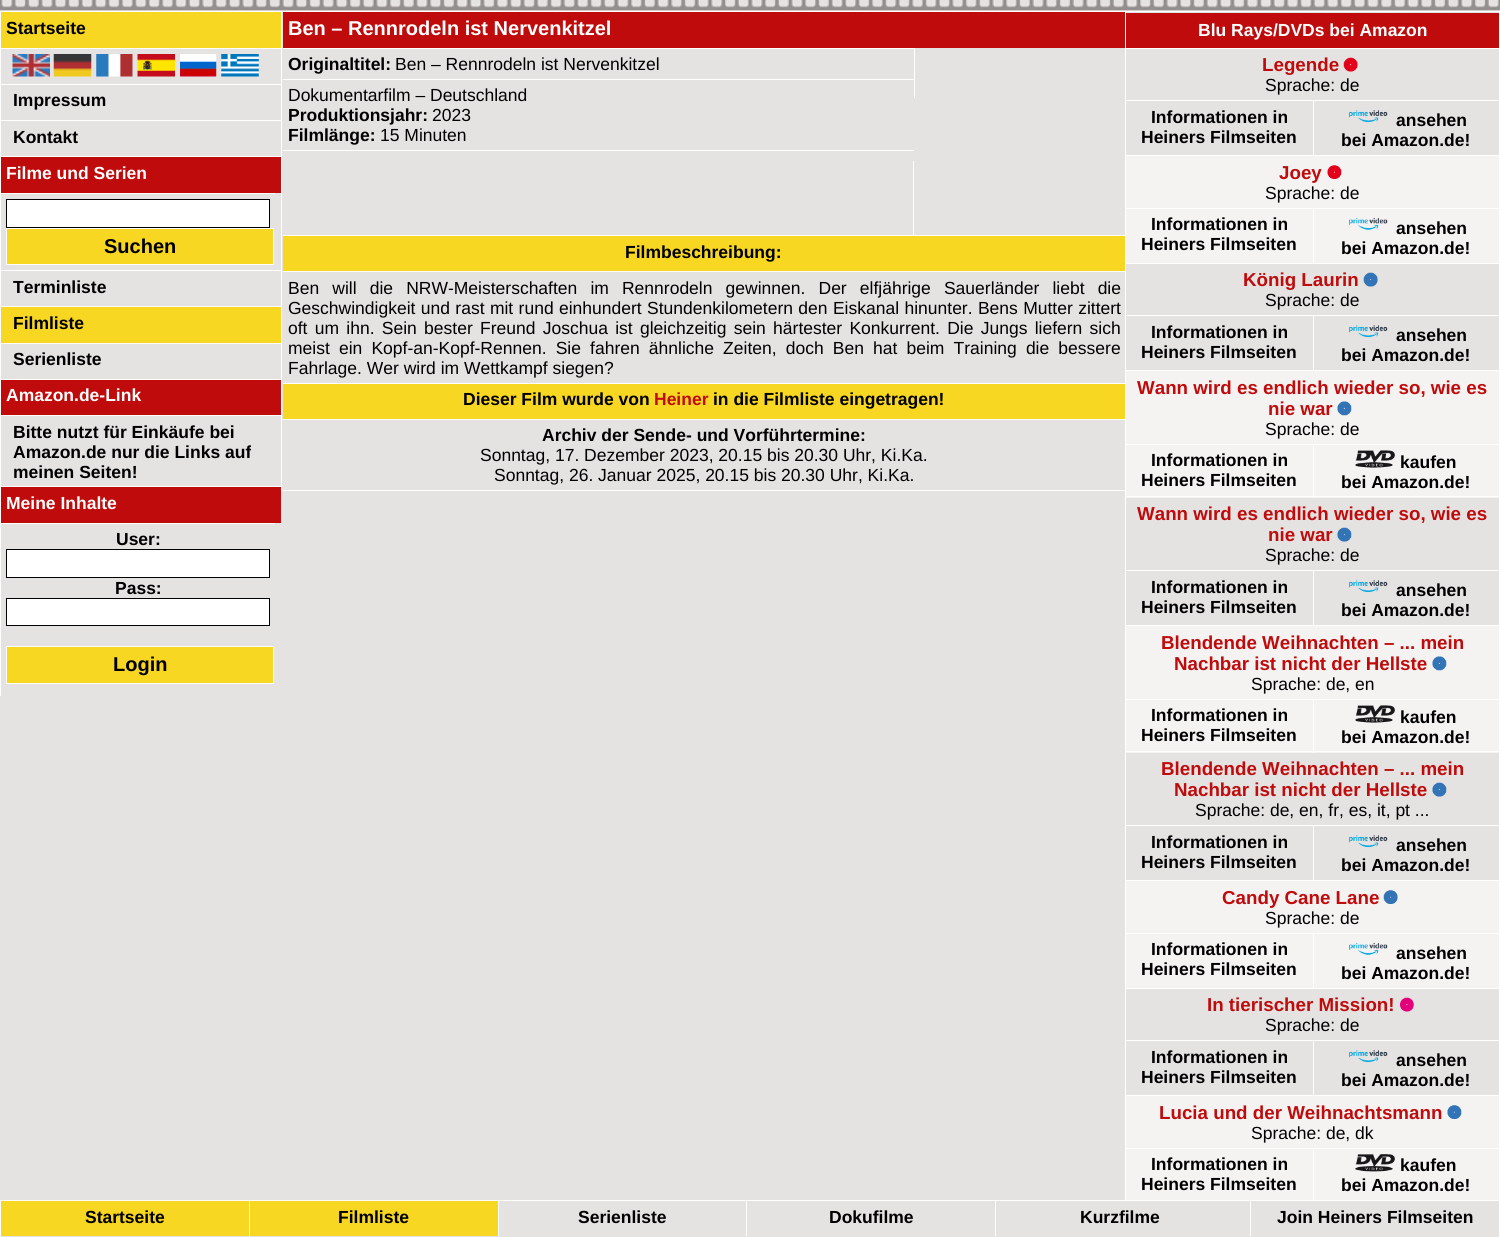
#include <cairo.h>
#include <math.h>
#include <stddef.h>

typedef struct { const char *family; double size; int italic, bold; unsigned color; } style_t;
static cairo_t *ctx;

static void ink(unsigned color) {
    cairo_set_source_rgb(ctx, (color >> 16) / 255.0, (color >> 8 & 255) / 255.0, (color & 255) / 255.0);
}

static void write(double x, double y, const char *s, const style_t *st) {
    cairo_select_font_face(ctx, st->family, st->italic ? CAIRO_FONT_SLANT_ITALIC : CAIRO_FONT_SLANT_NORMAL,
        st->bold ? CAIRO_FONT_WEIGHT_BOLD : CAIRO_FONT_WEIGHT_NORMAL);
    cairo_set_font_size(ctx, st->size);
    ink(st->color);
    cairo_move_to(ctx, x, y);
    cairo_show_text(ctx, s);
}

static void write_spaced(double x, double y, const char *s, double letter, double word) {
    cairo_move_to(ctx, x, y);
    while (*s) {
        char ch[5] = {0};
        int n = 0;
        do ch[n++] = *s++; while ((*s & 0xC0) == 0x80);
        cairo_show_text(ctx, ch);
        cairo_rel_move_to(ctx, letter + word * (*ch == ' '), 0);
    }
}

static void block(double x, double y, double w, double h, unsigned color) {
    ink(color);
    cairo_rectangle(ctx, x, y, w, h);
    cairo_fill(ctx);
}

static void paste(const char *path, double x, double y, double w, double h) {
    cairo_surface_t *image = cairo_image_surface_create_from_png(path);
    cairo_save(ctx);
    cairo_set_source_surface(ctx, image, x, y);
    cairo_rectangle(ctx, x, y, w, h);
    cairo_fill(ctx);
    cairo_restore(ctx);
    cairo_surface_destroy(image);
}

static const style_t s1 = {"Liberation Sans", 17.5, 0, 1, 0x000000};
static const style_t s2 = {"Liberation Sans", 17.5, 0, 1, 0xffffff};
static const style_t s3 = {"Liberation Sans", 20, 0, 1, 0x000000};
static const style_t s4 = {"Liberation Sans", 20, 0, 1, 0xffffff};
static const style_t s5 = {"Liberation Sans", 17.5, 0, 0, 0x000000};
static const style_t s6 = {"Liberation Sans", 17.5, 0, 1, 0xbf0b0b};
static const style_t s7 = {"Liberation Sans", 18.75, 0, 1, 0xbf0b0b};

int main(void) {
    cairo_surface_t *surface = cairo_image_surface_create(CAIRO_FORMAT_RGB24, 1500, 1237);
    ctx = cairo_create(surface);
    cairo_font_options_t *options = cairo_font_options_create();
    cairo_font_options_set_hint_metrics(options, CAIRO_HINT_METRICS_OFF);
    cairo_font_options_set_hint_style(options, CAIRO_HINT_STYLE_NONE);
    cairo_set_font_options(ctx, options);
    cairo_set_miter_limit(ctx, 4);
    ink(0xe5e2e2);
    cairo_paint(ctx);
    paste("pic1.png", 0, 0, 1500, 11);
    block(0, 11, 1, 685, 0xffffff);
    block(1, 12, 280, 36, 0xf7d722);
    block(1, 11, 280, 1, 0xffffff);
    write(6, 34, "Startseite", &s1);
    block(1, 48, 280, 1, 0xffffff);
    paste("pic2.png", 12, 54, 38, 23);
    paste("pic3.png", 53, 54, 39, 23);
    paste("pic4.png", 96, 54, 37, 23);
    paste("pic5.png", 137, 54, 38, 23);
    paste("pic6.png", 180, 54, 37, 23);
    paste("pic7.png", 221, 54, 38, 23);
    block(1, 84, 280, 1, 0xffffff);
    write(13, 106, "Impressum", &s1);
    block(1, 120, 280, 1, 0xffffff);
    write(13, 143, "Kontakt", &s1);
    block(1, 157, 280, 36, 0xbf0b0b);
    block(1, 156, 280, 1, 0xffffff);
    write(6, 179, "Filme und Serien", &s2);
    block(1, 193, 274, 1, 0xffffff);
    cairo_rectangle(ctx, 6.5, 199.5, 263, 28);
    cairo_fill_preserve(ctx);
    ink(0x000000);
    cairo_set_line_width(ctx, 1);
    cairo_stroke(ctx);
    ink(0xf7d722);
    cairo_rectangle(ctx, 6.5, 228.5, 267, 36);
    cairo_fill_preserve(ctx);
    ink(0xffffff);
    cairo_stroke(ctx);
    write(104, 253, "Suchen", &s3);
    block(1, 270, 280, 1, 0xffffff);
    write(13, 293, "Terminliste", &s1);
    block(1, 307, 280, 36, 0xf7d722);
    block(1, 306, 280, 1, 0xffffff);
    write(13, 329, "Filmliste", &s1);
    block(1, 343, 280, 1, 0xffffff);
    write(13, 365, "Serienliste", &s1);
    block(1, 380, 280, 35, 0xbf0b0b);
    block(1, 379, 280, 1, 0xffffff);
    write(6, 401, "Amazon.de-Link", &s2);
    block(1, 415, 280, 1, 0xffffff);
    write(13, 438, "Bitte nutzt für Einkäufe bei", &s1);
    write(13, 458, "Amazon.de nur die Links auf", &s1);
    write(13, 478, "meinen Seiten!", &s1);
    block(1, 487, 280, 36, 0xbf0b0b);
    block(1, 486, 280, 1, 0xffffff);
    write(6, 509, "Meine Inhalte", &s2);
    block(1, 523, 274, 1, 0xffffff);
    write(116, 545, "User:", &s1);
    ink(0xffffff);
    cairo_rectangle(ctx, 6.5, 549.5, 263, 28);
    cairo_fill_preserve(ctx);
    ink(0x000000);
    cairo_stroke(ctx);
    write(115, 594, "Pass:", &s1);
    ink(0xffffff);
    cairo_rectangle(ctx, 6.5, 598.5, 263, 27);
    cairo_fill_preserve(ctx);
    ink(0x000000);
    cairo_stroke(ctx);
    ink(0xf7d722);
    cairo_rectangle(ctx, 6.5, 646.5, 267, 37);
    cairo_fill_preserve(ctx);
    ink(0xffffff);
    cairo_stroke(ctx);
    write(113, 671, "Login", &s3);
    block(281, 11, 1, 480, 0xffffff);
    block(283, 12, 842, 36, 0xbf0b0b);
    block(283, 11, 842, 1, 0xffffff);
    write(288, 35, "Ben – Rennrodeln ist Nervenkitzel", &s4);
    block(913, 161, 1, 74, 0xffffff);
    block(283, 48, 631, 1, 0xffffff);
    write(288, 70, "Originaltitel:", &s1);
    write(395, 70, "Ben – Rennrodeln ist Nervenkitzel", &s5);
    block(283, 79, 631, 1, 0xffffff);
    write(288, 101, "Dokumentarfilm – Deutschland", &s5);
    write(288, 121, "Produktionsjahr:", &s1);
    write(432, 121, "2023", &s5);
    write(288, 141, "Filmlänge:", &s1);
    write(380, 141, "15 Minuten", &s5);
    block(283, 150, 631, 1, 0xffffff);
    block(914, 48, 1, 50, 0xffffff);
    block(283, 236, 842, 35, 0xf7d722);
    block(283, 235, 842, 1, 0xffffff);
    write(625, 258, "Filmbeschreibung:", &s1);
    block(283, 271, 842, 1, 0xffffff);
    cairo_select_font_face(ctx, "Liberation Sans", CAIRO_FONT_SLANT_NORMAL, CAIRO_FONT_WEIGHT_NORMAL);
    ink(0x000000);
    write_spaced(288, 294, "Ben will die NRW-Meisterschaften im Rennrodeln gewinnen. Der elfjährige Sauerländer liebt die", 0, 8.25);
    write_spaced(288, 314, "Geschwindigkeit und rast mit rund einhundert Stundenkilometern den Eiskanal hinunter. Bens Mutter zittert", 0, 0.5);
    write_spaced(288, 334, "oft um ihn. Sein bester Freund Joschua ist gleichzeitig sein härtester Konkurrent. Die Jungs liefern sich", 0, 2.4);
    write_spaced(288, 354, "meist ein Kopf-an-Kopf-Rennen. Sie fahren ähnliche Zeiten, doch Ben hat beim Training die bessere", 0, 4.25);
    write(288, 374, "Fahrlage. Wer wird im Wettkampf siegen?", &s5);
    block(283, 384, 842, 35, 0xf7d722);
    block(283, 383, 842, 1, 0xffffff);
    write(463, 405, "Dieser Film wurde von", &s1);
    write(654, 405, "Heiner", &s6);
    write(713, 405, "in die Filmliste eingetragen!", &s1);
    block(283, 419, 842, 1, 0xffffff);
    block(283, 490, 842, 1, 0xffffff);
    write(542, 441, "Archiv der Sende- und Vorführtermine:", &s1);
    write(480, 461, "Sonntag, 17. Dezember 2023, 20.15 bis 20.30 Uhr, Ki.Ka.", &s5);
    write(494, 481, "Sonntag, 26. Januar 2025, 20.15 bis 20.30 Uhr, Ki.Ka.", &s5);
    block(1499, 11, 1, 1189, 0xffffff);
    block(1125, 11, 1, 1189, 0xffffff);
    block(1126, 13, 373, 35, 0xbf0b0b);
    block(1126, 11, 374, 1, 0xffffff);
    write(1198, 36, "Blu Rays/DVDs bei Amazon", &s2);
    block(1126, 48, 374, 1, 0xffffff);
    write(1262, 71, "Legende", &s7);
    paste("pic8.png", 1343, 57, 15, 15);
    write(1265, 91, "Sprache: de", &s5);
    block(1313, 100, 187, 1, 0xffffff);
    block(1126, 155, 374, 1, 0xffffff);
    block(1313, 100, 1, 56, 0xffffff);
    block(1126, 100, 188, 1, 0xffffff);
    write(1151, 123, "Informationen in", &s1);
    write(1141, 143, "Heiners Filmseiten", &s1);
    paste("pic9.png", 1349, 110, 39, 13);
    write(1396, 126, "ansehen", &s1);
    write(1341, 146, "bei Amazon.de!", &s1);
    block(1126, 156, 373, 52, 0xf5f2f2);
    write(1279, 179, "Joey", &s7);
    paste("pic10.png", 1327, 165, 15, 14);
    write(1265, 199, "Sprache: de", &s5);
    block(1126, 209, 187, 54, 0xf5f2f2);
    block(1313, 208, 187, 1, 0xffffff);
    block(1126, 263, 374, 1, 0xffffff);
    block(1313, 208, 1, 56, 0xffffff);
    block(1126, 208, 188, 1, 0xffffff);
    write(1151, 230, "Informationen in", &s1);
    write(1141, 250, "Heiners Filmseiten", &s1);
    block(1314, 209, 185, 54, 0xf5f2f2);
    paste("pic11.png", 1349, 217, 39, 13);
    write(1396, 234, "ansehen", &s1);
    write(1341, 254, "bei Amazon.de!", &s1);
    write(1243, 286, "König Laurin", &s7);
    paste("pic12.png", 1363, 272, 15, 15);
    write(1265, 306, "Sprache: de", &s5);
    block(1313, 315, 187, 1, 0xffffff);
    block(1126, 370, 374, 1, 0xffffff);
    block(1313, 315, 1, 56, 0xffffff);
    block(1126, 315, 188, 1, 0xffffff);
    write(1151, 338, "Informationen in", &s1);
    write(1141, 358, "Heiners Filmseiten", &s1);
    paste("pic9.png", 1349, 325, 39, 13);
    write(1396, 341, "ansehen", &s1);
    write(1341, 361, "bei Amazon.de!", &s1);
    block(1126, 371, 373, 73, 0xf5f2f2);
    write(1137, 394, "Wann wird es endlich wieder so, wie es", &s7);
    write(1268, 415, "nie war", &s7);
    paste("pic13.png", 1337, 401, 15, 15);
    write(1265, 435, "Sprache: de", &s5);
    block(1126, 445, 187, 53, 0xf5f2f2);
    block(1313, 444, 187, 1, 0xffffff);
    block(1314, 445, 185, 53, 0xf5f2f2);
    block(1126, 496, 374, 1, 0xffffff);
    block(1313, 444, 1, 54, 0xffffff);
    block(1126, 444, 188, 1, 0xffffff);
    write(1151, 466, "Informationen in", &s1);
    write(1141, 486, "Heiners Filmseiten", &s1);
    paste("pic14.png", 1355, 450, 40, 18);
    write(1400, 468, "kaufen", &s1);
    write(1341, 488, "bei Amazon.de!", &s1);
    write(1137, 520, "Wann wird es endlich wieder so, wie es", &s7);
    write(1268, 541, "nie war", &s7);
    paste("pic15.png", 1337, 527, 15, 15);
    write(1265, 561, "Sprache: de", &s5);
    block(1313, 570, 187, 1, 0xffffff);
    block(1126, 625, 374, 1, 0xffffff);
    block(1313, 570, 1, 56, 0xffffff);
    block(1126, 570, 188, 1, 0xffffff);
    write(1151, 593, "Informationen in", &s1);
    write(1141, 613, "Heiners Filmseiten", &s1);
    paste("pic9.png", 1349, 580, 39, 13);
    write(1396, 596, "ansehen", &s1);
    write(1341, 616, "bei Amazon.de!", &s1);
    block(1126, 626, 373, 73, 0xf5f2f2);
    write(1161, 649, "Blendende Weihnachten – ... mein", &s7);
    write(1174, 670, "Nachbar ist nicht der Hellste", &s7);
    paste("pic13.png", 1432, 656, 15, 15);
    write(1251, 690, "Sprache: de, en", &s5);
    block(1126, 700, 187, 53, 0xf5f2f2);
    block(1313, 699, 187, 1, 0xffffff);
    block(1314, 700, 185, 53, 0xf5f2f2);
    block(1126, 751, 374, 1, 0xffffff);
    block(1313, 699, 1, 54, 0xffffff);
    block(1126, 699, 188, 1, 0xffffff);
    write(1151, 721, "Informationen in", &s1);
    write(1141, 741, "Heiners Filmseiten", &s1);
    paste("pic14.png", 1355, 705, 40, 18);
    write(1400, 723, "kaufen", &s1);
    write(1341, 743, "bei Amazon.de!", &s1);
    write(1161, 775, "Blendende Weihnachten – ... mein", &s7);
    write(1174, 796, "Nachbar ist nicht der Hellste", &s7);
    paste("pic15.png", 1432, 782, 15, 15);
    write(1195, 816, "Sprache: de, en, fr, es, it, pt ...", &s5);
    block(1313, 825, 187, 1, 0xffffff);
    block(1126, 880, 374, 1, 0xffffff);
    block(1313, 825, 1, 56, 0xffffff);
    block(1126, 825, 188, 1, 0xffffff);
    write(1151, 848, "Informationen in", &s1);
    write(1141, 868, "Heiners Filmseiten", &s1);
    paste("pic9.png", 1349, 835, 39, 13);
    write(1396, 851, "ansehen", &s1);
    write(1341, 871, "bei Amazon.de!", &s1);
    block(1126, 881, 373, 52, 0xf5f2f2);
    write(1222, 904, "Candy Cane Lane", &s7);
    paste("pic16.png", 1383, 890, 15, 14);
    write(1265, 924, "Sprache: de", &s5);
    block(1126, 934, 187, 54, 0xf5f2f2);
    block(1313, 933, 187, 1, 0xffffff);
    block(1126, 988, 374, 1, 0xffffff);
    block(1313, 933, 1, 56, 0xffffff);
    block(1126, 933, 188, 1, 0xffffff);
    write(1151, 955, "Informationen in", &s1);
    write(1141, 975, "Heiners Filmseiten", &s1);
    block(1314, 934, 185, 54, 0xf5f2f2);
    paste("pic11.png", 1349, 942, 39, 13);
    write(1396, 959, "ansehen", &s1);
    write(1341, 979, "bei Amazon.de!", &s1);
    write(1207, 1011, "In tierischer Mission!", &s7);
    paste("pic17.png", 1400, 997, 14, 15);
    write(1265, 1031, "Sprache: de", &s5);
    block(1313, 1040, 187, 1, 0xffffff);
    block(1126, 1095, 374, 1, 0xffffff);
    block(1313, 1040, 1, 56, 0xffffff);
    block(1126, 1040, 188, 1, 0xffffff);
    write(1151, 1063, "Informationen in", &s1);
    write(1141, 1083, "Heiners Filmseiten", &s1);
    paste("pic9.png", 1349, 1050, 39, 13);
    write(1396, 1066, "ansehen", &s1);
    write(1341, 1086, "bei Amazon.de!", &s1);
    block(1126, 1096, 373, 52, 0xf5f2f2);
    write(1159, 1119, "Lucia und der Weihnachtsmann", &s7);
    paste("pic18.png", 1447, 1105, 15, 14);
    write(1251, 1139, "Sprache: de, dk", &s5);
    block(1126, 1149, 187, 51, 0xf5f2f2);
    block(1313, 1148, 187, 1, 0xffffff);
    block(1313, 1148, 1, 53, 0xffffff);
    block(1126, 1148, 188, 1, 0xffffff);
    write(1151, 1170, "Informationen in", &s1);
    write(1141, 1190, "Heiners Filmseiten", &s1);
    block(1314, 1149, 185, 51, 0xf5f2f2);
    paste("pic19.png", 1355, 1154, 40, 18);
    write(1400, 1171, "kaufen", &s1);
    write(1341, 1191, "bei Amazon.de!", &s1);
    cairo_rectangle(ctx, 0.5, 1200.5, 1499, 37);
    ink(0xffffff);
    cairo_stroke(ctx);
    block(1, 1201, 248, 35, 0xf7d722);
    write(85, 1223, "Startseite", &s1);
    block(250, 1201, 248, 35, 0xf7d722);
    block(249, 1201, 1, 35, 0xffffff);
    write(338, 1223, "Filmliste", &s1);
    block(498, 1201, 1, 35, 0xffffff);
    write(578, 1223, "Serienliste", &s1);
    block(746, 1201, 1, 35, 0xffffff);
    write(829, 1223, "Dokufilme", &s1);
    block(995, 1201, 1, 35, 0xffffff);
    write(1080, 1223, "Kurzfilme", &s1);
    block(1250, 1201, 1, 35, 0xffffff);
    write(1277, 1223, "Join Heiners Filmseiten", &s1);
    cairo_surface_write_to_png(surface, "screenshot.png");
    cairo_font_options_destroy(options);
    cairo_destroy(ctx);
    cairo_surface_destroy(surface);
    return 0;
}
